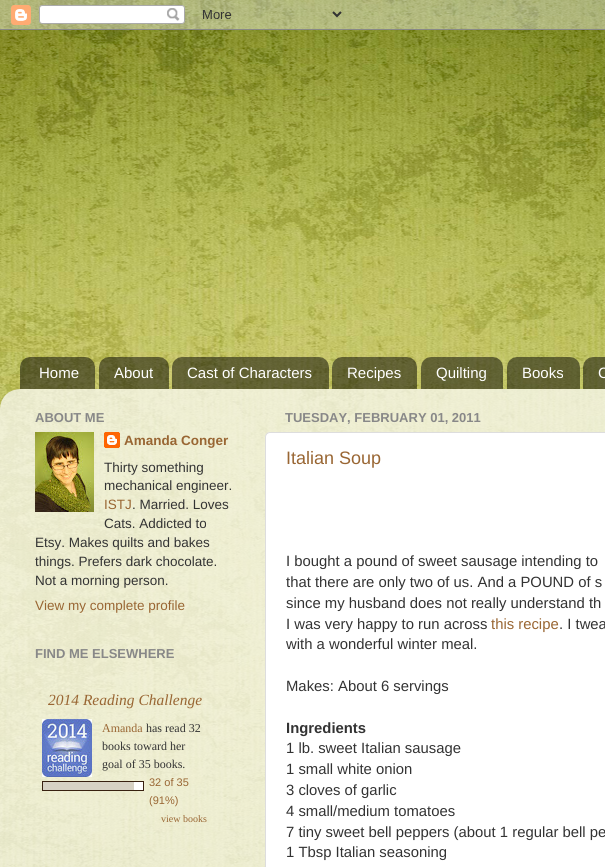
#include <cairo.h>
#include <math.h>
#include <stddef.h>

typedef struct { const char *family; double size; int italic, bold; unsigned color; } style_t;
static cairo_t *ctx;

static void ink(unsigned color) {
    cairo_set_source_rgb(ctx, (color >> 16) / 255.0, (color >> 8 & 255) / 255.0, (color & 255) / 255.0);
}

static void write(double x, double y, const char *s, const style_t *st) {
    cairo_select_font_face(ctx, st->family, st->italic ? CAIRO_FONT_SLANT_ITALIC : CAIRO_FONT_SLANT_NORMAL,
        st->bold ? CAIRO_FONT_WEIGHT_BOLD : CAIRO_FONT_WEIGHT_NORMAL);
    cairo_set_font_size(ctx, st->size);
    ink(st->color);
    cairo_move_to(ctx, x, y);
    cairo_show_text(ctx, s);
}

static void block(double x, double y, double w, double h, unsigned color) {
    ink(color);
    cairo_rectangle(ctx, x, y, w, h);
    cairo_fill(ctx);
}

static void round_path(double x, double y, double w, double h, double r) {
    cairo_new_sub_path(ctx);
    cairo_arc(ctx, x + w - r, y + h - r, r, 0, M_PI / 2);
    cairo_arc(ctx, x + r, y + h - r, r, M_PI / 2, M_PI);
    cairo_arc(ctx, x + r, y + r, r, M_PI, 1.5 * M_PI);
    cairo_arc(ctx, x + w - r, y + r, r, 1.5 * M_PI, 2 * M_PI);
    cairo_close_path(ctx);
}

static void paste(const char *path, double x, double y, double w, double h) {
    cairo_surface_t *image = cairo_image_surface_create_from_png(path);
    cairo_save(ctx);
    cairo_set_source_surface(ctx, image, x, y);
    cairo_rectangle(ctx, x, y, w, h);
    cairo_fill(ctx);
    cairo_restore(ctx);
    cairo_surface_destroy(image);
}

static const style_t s1 = {"Liberation Sans", 15, 0, 0, 0xffffff};
static const style_t s2 = {"Liberation Sans", 13, 0, 1, 0x888888};
static const style_t s3 = {"Liberation Sans", 13.5, 0, 1, 0x996633};
static const style_t s4 = {"Liberation Sans", 13.5, 0, 0, 0x333333};
static const style_t s5 = {"Liberation Sans", 13.5, 0, 0, 0x996633};
static const style_t s6 = {"Liberation Serif", 15.5, 1, 0, 0x996633};
static const style_t s7 = {"Liberation Serif", 12, 0, 0, 0x996633};
static const style_t s8 = {"Liberation Serif", 12, 0, 0, 0x333333};
static const style_t s9 = {"Liberation Sans", 11, 0, 0, 0x996633};
static const style_t s10 = {"Liberation Serif", 10, 0, 0, 0x996633};
static const style_t s11 = {"Liberation Sans", 18, 0, 0, 0x996633};
static const style_t s12 = {"Liberation Sans", 14.85, 0, 0, 0x333333};
static const style_t s13 = {"Liberation Sans", 14.85, 0, 0, 0x996633};
static const style_t s14 = {"Liberation Sans", 14.85, 0, 1, 0x333333};

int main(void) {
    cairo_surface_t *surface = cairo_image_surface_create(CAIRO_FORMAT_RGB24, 605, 867);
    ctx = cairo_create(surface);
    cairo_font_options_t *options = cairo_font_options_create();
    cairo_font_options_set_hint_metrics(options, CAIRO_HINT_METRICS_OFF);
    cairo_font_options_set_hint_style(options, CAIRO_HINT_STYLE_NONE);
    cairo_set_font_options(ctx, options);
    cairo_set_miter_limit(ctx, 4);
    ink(0xffffff);
    cairo_paint(ctx);
    paste("pic1.png", 0, 0, 605, 867);
    paste("pic2.png", 0, 0, 605, 30);
    paste("pic3.png", 20, 357, 75, 32);
    write(39, 378, "Home", &s1);
    paste("pic4.png", 99, 357, 70, 32);
    write(114, 378, "About", &s1);
    paste("pic5.png", 172, 357, 157, 32);
    write(187, 378, "Cast of Characters", &s1);
    paste("pic6.png", 332, 357, 85, 32);
    write(347, 378, "Recipes", &s1);
    paste("pic7.png", 421, 357, 82, 32);
    write(436, 378, "Quilting", &s1);
    paste("pic8.png", 507, 357, 73, 32);
    write(522, 378, "Books", &s1);
    paste("pic9.png", 583, 357, 22, 32);
    write(598, 378, "C", &s1);
    paste("pic10.png", 0, 389, 605, 478);
    write(35, 422, "ABOUT ME", &s2);
    paste("pic11.png", 35, 432, 59, 80);
    paste("pic12.png", 104, 432, 16, 16);
    write(124, 445, "Amanda Conger", &s3);
    write(104, 472, "Thirty something", &s4);
    write(104, 490, "mechanical engineer.", &s4);
    write(104, 509, "ISTJ", &s5);
    write(132, 509, ". Married. Loves", &s4);
    write(104, 528, "Cats. Addicted to", &s4);
    write(35, 547, "Etsy. Makes quilts and bakes", &s4);
    write(35, 566, "things. Prefers dark chocolate.", &s4);
    write(35, 585, "Not a morning person.", &s4);
    write(35, 610, "View my complete profile", &s5);
    write(35, 658, "FIND ME ELSEWHERE", &s2);
    write(48, 705, "2014 Reading Challenge", &s6);
    paste("pic13.png", 42, 719, 50, 58);
    write(102, 732, "Amanda", &s7);
    write(146, 732, "has read 32", &s8);
    write(102, 750, "books toward her", &s8);
    write(102, 768, "goal of 35 books.", &s8);
    block(134, 782, 9, 8, 0xffffff);
    cairo_rectangle(ctx, 42.5, 781.5, 101, 9);
    ink(0x382110);
    cairo_set_line_width(ctx, 1);
    cairo_stroke(ctx);
    block(43, 782, 91, 8, 0xd7d2c4);
    write(149, 786, "32 of 35", &s9);
    write(149, 804, "(91%)", &s9);
    write(161, 822, "view books", &s10);
    write(285, 422, "TUESDAY, FEBRUARY 01, 2011", &s2);
    ink(0xffffff);
    round_path(265.5, 432.5, 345, 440, 4.5);
    cairo_fill_preserve(ctx);
    ink(0xdddddd);
    cairo_stroke(ctx);
    write(286, 464, "Italian Soup", &s11);
    write(286, 566, "I bought a pound of sweet sausage intending to", &s12);
    write(286, 587, "that there are only two of us. And a POUND of s", &s12);
    write(286, 608, "since my husband does not really understand th", &s12);
    write(286, 629, "I was very happy to run across", &s12);
    write(491, 629, "this recipe", &s13);
    write(559, 629, ". I twea", &s12);
    write(286, 649, "with a wonderful winter meal.", &s12);
    write(286, 691, "Makes: About 6 servings", &s12);
    write(286, 733, "Ingredients", &s14);
    write(286, 753, "1 lb. sweet Italian sausage", &s12);
    write(286, 774, "1 small white onion", &s12);
    write(286, 795, "3 cloves of garlic", &s12);
    write(286, 816, "4 small/medium tomatoes", &s12);
    write(286, 837, "7 tiny sweet bell peppers (about 1 regular bell pe", &s12);
    write(286, 857, "1 Tbsp Italian seasoning", &s12);
    cairo_surface_write_to_png(surface, "screenshot.png");
    cairo_font_options_destroy(options);
    cairo_destroy(ctx);
    cairo_surface_destroy(surface);
    return 0;
}
